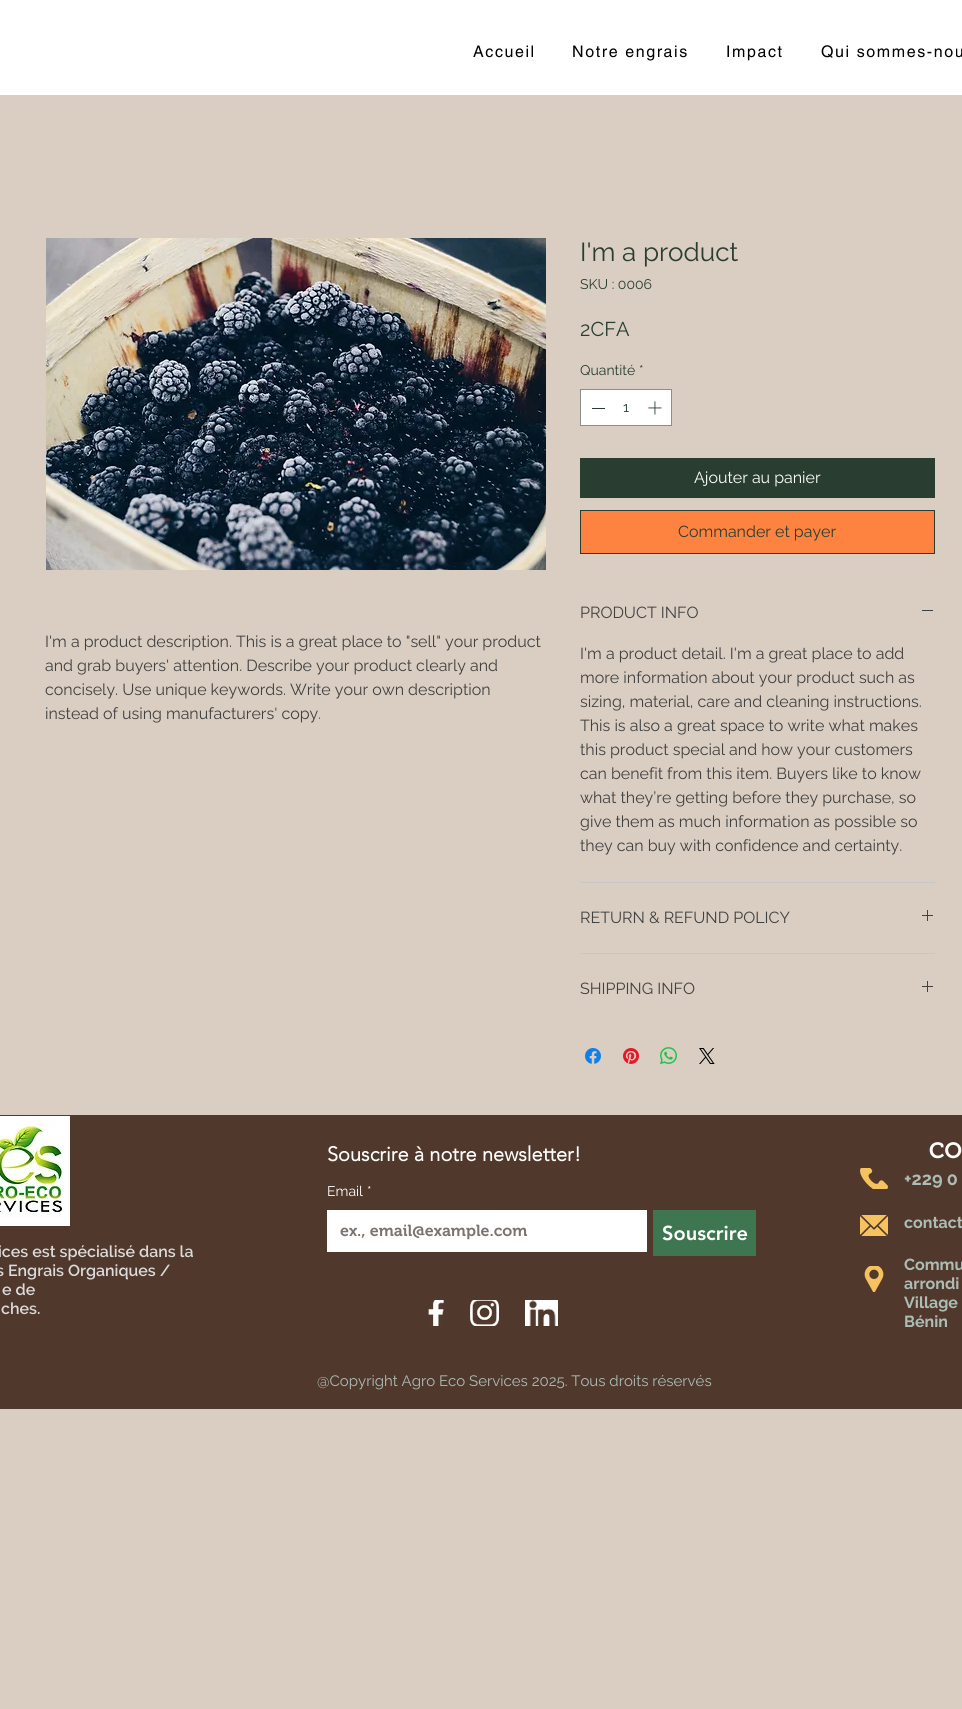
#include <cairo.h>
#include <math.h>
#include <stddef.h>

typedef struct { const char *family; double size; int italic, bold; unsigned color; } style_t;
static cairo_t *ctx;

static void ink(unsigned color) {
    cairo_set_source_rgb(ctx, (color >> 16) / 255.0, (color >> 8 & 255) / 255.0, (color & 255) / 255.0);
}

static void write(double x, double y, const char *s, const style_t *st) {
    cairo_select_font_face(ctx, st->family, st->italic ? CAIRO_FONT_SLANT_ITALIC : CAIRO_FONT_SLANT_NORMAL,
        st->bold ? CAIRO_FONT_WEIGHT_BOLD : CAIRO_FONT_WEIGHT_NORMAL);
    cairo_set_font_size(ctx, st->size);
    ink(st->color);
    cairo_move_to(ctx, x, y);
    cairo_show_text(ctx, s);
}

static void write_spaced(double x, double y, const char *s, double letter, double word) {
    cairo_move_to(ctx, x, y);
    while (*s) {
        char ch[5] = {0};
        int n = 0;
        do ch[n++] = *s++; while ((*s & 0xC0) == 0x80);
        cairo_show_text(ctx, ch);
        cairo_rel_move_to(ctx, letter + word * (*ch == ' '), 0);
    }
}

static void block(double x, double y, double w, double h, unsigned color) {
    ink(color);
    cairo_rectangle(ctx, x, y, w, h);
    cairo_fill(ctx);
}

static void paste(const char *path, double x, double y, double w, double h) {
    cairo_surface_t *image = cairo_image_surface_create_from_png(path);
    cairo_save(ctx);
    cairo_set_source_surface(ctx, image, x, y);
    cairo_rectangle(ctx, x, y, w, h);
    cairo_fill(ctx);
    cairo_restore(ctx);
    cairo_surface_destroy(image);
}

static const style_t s1 = {"Raleway", 16, 0, 0, 0x414141};
static const style_t s2 = {"Raleway", 26, 0, 0, 0x293e31};
static const style_t s3 = {"Raleway", 14, 0, 0, 0x293e31};
static const style_t s4 = {"Raleway", 20, 0, 0, 0x293e31};
static const style_t s5 = {"Raleway", 16, 0, 0, 0xffffff};
static const style_t s6 = {"Raleway", 16, 0, 0, 0x293e31};
static const style_t s7 = {"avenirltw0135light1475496", 20, 0, 1, 0xffffff};
static const style_t s8 = {"Raleway", 14, 0, 0, 0xffffff};
static const style_t s9 = {"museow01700 SemiBold", 16, 0, 0, 0x7b736f};
static const style_t s10 = {"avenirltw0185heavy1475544 Black", 20, 0, 0, 0xffffff};
static const style_t s11 = {"museow01700 SemiBold", 22, 0, 0, 0xffffff};
static const style_t s12 = {"Raleway", 18, 0, 1, 0xacbdb6};
static const style_t s13 = {"Raleway", 16, 0, 1, 0xacbdb6};
static const style_t s14 = {"Raleway SemiBold", 16, 0, 0, 0xdbdbdb};
static const style_t s15 = {"Raleway", 15, 0, 0, 0xacbdb6};

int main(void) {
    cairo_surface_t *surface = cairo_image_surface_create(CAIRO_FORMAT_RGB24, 962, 1709);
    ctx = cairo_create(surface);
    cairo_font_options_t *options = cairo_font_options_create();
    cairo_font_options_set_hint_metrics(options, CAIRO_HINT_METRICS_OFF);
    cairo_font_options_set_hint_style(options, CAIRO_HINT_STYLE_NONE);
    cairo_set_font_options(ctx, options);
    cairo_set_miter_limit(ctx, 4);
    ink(0xdacec2);
    cairo_paint(ctx);
    block(0, 0, 962, 95, 0xffffff);
    cairo_select_font_face(ctx, "helvetica", CAIRO_FONT_SLANT_NORMAL, CAIRO_FONT_WEIGHT_NORMAL);
    cairo_set_font_size(ctx, 16);
    ink(0x000000);
    write_spaced(473, 57, "Accueil", 1.6, 0);
    write_spaced(572, 57, "Notre engrais", 1.6, 0);
    write_spaced(726, 57, "Impact", 1.6, 0);
    write_spaced(821, 57, "Qui sommes-nou", 1.6, 0);
    paste("pic1.png", 46, 238, 500, 332);
    write(45, 647, "I'm a product description. This is a great place to \"sell\" your product", &s1);
    write(45, 671, "and grab buyers' attention. Describe your product clearly and", &s1);
    write(45, 695, "concisely. Use unique keywords. Write your own description", &s1);
    write(45, 719, "instead of using manufacturers' copy.", &s1);
    write(580, 261, "I'm a product", &s2);
    write(580, 289, "SKU : 0006", &s3);
    write(580, 336, "2CFA", &s4);
    write(580, 375, "Quantité", &s3);
    write(639, 375, "*", &s3);
    ink(0xffffff);
    cairo_rectangle(ctx, 580.5, 389.5, 91, 36);
    cairo_fill_preserve(ctx);
    ink(0x8d8d8d);
    cairo_set_line_width(ctx, 1);
    cairo_stroke(ctx);
    block(592, 408, 13, 1, 0x293e31);
    write(623, 412, "1", &s3);
    paste("pic2.png", 648, 401, 14, 14);
    block(580, 458, 355, 40, 0x293e31);
    write(694, 483, "Ajouter au panier", &s5);
    ink(0xfe8340);
    cairo_rectangle(ctx, 580.5, 510.5, 354, 43);
    cairo_fill_preserve(ctx);
    ink(0x293e31);
    cairo_stroke(ctx);
    write(678, 537, "Commander et payer", &s6);
    block(580, 882, 355, 1, 0xc7c7c7);
    write(580, 618, "PRODUCT INFO", &s1);
    block(922, 610, 11, 1, 0x414141);
    write(580, 659, "I'm a product detail. I'm a great place to add", &s1);
    write(580, 683, "more information about your product such as", &s1);
    write(580, 707, "sizing, material, care and cleaning instructions.", &s1);
    write(580, 731, "This is also a great space to write what makes", &s1);
    write(580, 755, "this product special and how your customers", &s1);
    write(580, 779, "can benefit from this item. Buyers like to know", &s1);
    write(580, 803, "what they’re getting before they purchase, so", &s1);
    write(580, 827, "give them as much information as possible so", &s1);
    write(580, 851, "they can buy with confidence and certainty.", &s1);
    block(580, 953, 355, 1, 0xc7c7c7);
    write(580, 923, "RETURN & REFUND POLICY", &s1);
    paste("pic3.png", 922, 910, 11, 11);
    write(580, 994, "SHIPPING INFO", &s1);
    paste("pic3.png", 922, 981, 11, 11);
    paste("pic4.png", 585, 1048, 16, 16);
    paste("pic5.png", 623, 1048, 16, 16);
    paste("pic6.png", 660, 1047, 17, 17);
    paste("pic7.png", 699, 1048, 16, 16);
    block(0, 1115, 962, 294, 0x51382d);
    paste("pic8.png", 0, 1116, 70, 110);
    write(327, 1161, "Souscrire à notre newsletter!", &s7);
    write(327, 1196, "Email", &s8);
    write(367, 1196, "*", &s8);
    block(327, 1210, 320, 42, 0xffffff);
    write(340, 1236, "ex., email@example.com", &s9);
    block(653, 1210, 103, 46, 0x3f7652);
    write(662, 1240, "Souscrire", &s10);
    paste("pic9.png", 860, 1168, 28, 21);
    write(929, 1158, "CO", &s11);
    write(904, 1185, "+229 0", &s12);
    paste("pic10.png", 860, 1215, 28, 21);
    write(904, 1228, "contact", &s13);
    write(-2, 1257, "ices est spécialisé dans la", &s14);
    write(-4, 1276, "s Engrais Organiques /", &s14);
    write(2, 1295, "e de", &s14);
    write(1, 1314, "ches.", &s14);
    paste("pic11.png", 864, 1266, 20, 26);
    write(904, 1270, "Commu", &s13);
    write(904, 1289, "arrondi", &s13);
    write(904, 1308, "Village", &s13);
    write(904, 1327, "Bénin", &s13);
    paste("pic12.png", 428, 1300, 16, 26);
    paste("pic13.png", 470, 1300, 29, 26);
    paste("pic14.png", 525, 1300, 33, 26);
    write(317, 1386, "@Copyright Agro Eco Services 2025. Tous droits réservés", &s15);
    cairo_surface_write_to_png(surface, "screenshot.png");
    cairo_font_options_destroy(options);
    cairo_destroy(ctx);
    cairo_surface_destroy(surface);
    return 0;
}
